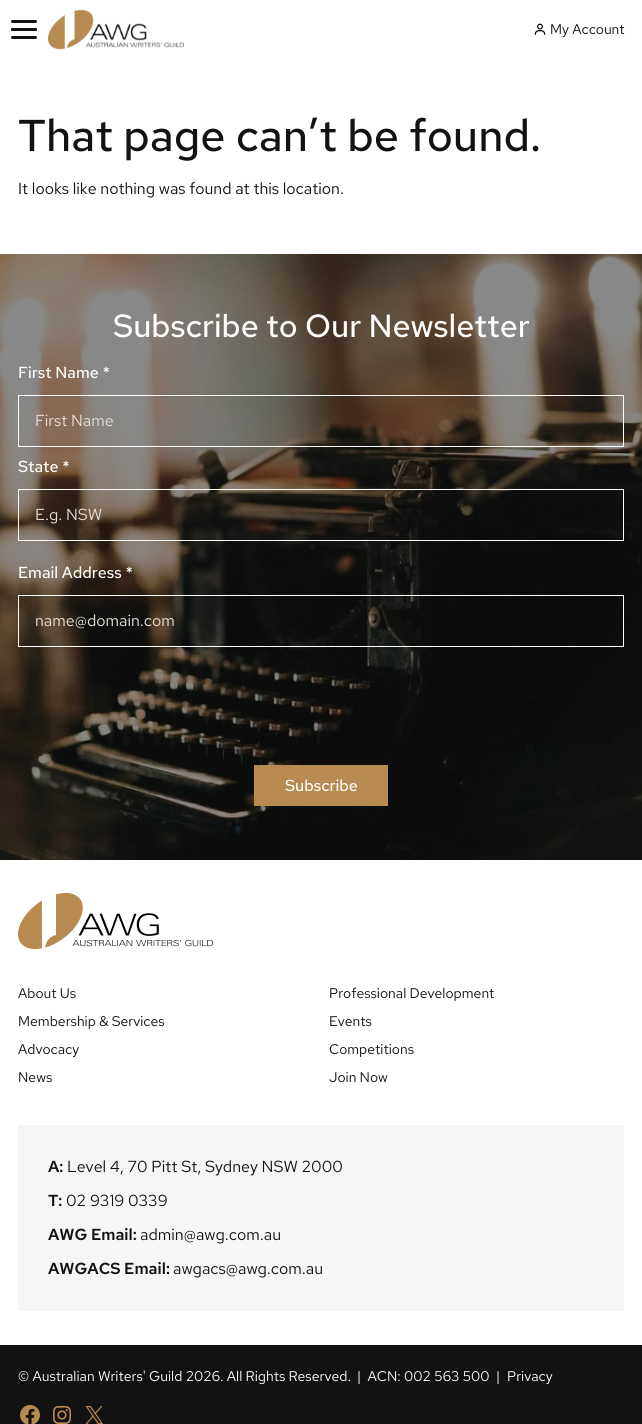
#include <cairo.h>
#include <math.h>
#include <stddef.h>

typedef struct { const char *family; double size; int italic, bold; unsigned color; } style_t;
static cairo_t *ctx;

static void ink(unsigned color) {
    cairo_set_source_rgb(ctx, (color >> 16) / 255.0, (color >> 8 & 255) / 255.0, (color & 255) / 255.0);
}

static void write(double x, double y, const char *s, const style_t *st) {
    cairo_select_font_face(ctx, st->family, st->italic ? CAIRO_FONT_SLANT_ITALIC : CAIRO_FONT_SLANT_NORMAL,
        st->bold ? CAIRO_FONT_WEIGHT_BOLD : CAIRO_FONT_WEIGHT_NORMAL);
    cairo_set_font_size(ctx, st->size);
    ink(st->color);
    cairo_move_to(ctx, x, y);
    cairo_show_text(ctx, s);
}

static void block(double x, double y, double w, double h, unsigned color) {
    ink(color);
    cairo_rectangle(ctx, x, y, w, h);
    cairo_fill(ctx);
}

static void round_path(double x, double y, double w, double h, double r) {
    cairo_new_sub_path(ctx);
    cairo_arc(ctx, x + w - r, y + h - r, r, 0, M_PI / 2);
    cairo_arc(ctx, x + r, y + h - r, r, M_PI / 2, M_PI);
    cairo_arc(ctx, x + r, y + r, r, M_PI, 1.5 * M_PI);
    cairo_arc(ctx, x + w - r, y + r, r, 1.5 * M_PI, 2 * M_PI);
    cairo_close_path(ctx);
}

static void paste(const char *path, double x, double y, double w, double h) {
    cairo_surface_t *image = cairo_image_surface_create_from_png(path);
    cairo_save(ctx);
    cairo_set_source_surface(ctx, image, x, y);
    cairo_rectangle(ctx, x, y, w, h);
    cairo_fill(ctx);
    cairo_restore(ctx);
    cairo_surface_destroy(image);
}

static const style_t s1 = {"Red Hat Text", 14, 0, 0, 0x121212};
static const style_t s2 = {"Red Hat Text Medium", 44.5, 0, 0, 0x121212};
static const style_t s3 = {"Red Hat Text", 16, 0, 0, 0x121212};
static const style_t s4 = {"Red Hat Text Medium", 32, 0, 0, 0xffffff};
static const style_t s5 = {"Red Hat Text Medium", 16, 0, 0, 0xffffff};
static const style_t s6 = {"Red Hat Text", 16, 0, 0, 0xe5e0da};
static const style_t s7 = {"Red Hat Text SemiBold", 16, 0, 0, 0x121212};
static const style_t s8 = {"Red Hat Text", 14, 0, 0, 0xffffff};

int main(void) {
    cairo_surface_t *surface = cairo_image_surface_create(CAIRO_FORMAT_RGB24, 642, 1424);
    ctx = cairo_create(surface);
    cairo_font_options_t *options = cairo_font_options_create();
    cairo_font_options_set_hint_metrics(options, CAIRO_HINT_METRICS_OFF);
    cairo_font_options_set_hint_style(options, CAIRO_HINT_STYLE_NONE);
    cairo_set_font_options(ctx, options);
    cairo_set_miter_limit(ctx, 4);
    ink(0xffffff);
    cairo_paint(ctx);
    ink(0x121212);
    round_path(11, 28, 26, 3, 1);
    cairo_fill(ctx);
    round_path(11, 20, 26, 3, 1.5);
    cairo_fill(ctx);
    round_path(11, 36, 26, 3, 1.5);
    cairo_fill(ctx);
    paste("pic1.png", 48, 9, 136, 41);
    paste("pic2.png", 534, 23, 12, 12);
    write(550, 34, "My Account", &s1);
    write(18, 151, "That page can’t be found.", &s2);
    write(18, 194, "It looks like nothing was found at this location.", &s3);
    paste("pic3.png", 0, 254, 642, 606);
    write(113, 337, "Subscribe to Our Newsletter", &s4);
    write(18, 378, "First Name *", &s5);
    cairo_rectangle(ctx, 18.5, 395.5, 605, 51);
    cairo_set_line_width(ctx, 1);
    cairo_stroke(ctx);
    write(35, 426, "First Name", &s6);
    write(18, 472, "State *", &s5);
    cairo_rectangle(ctx, 18.5, 489.5, 605, 51);
    cairo_stroke(ctx);
    write(35, 520, "E.g. NSW", &s6);
    write(18, 578, "Email Address *", &s5);
    cairo_rectangle(ctx, 18.5, 595.5, 605, 51);
    cairo_stroke(ctx);
    write(35, 626, "name@domain.com", &s6);
    block(254, 765, 134, 41, 0xb78a4f);
    write(285, 791, "Subscribe", &s5);
    paste("pic4.png", 18, 893, 195, 56);
    write(18, 998, "About Us", &s1);
    write(329, 998, "Professional Development", &s1);
    write(18, 1026, "Membership & Services", &s1);
    write(329, 1026, "Events", &s1);
    write(18, 1054, "Advocacy", &s1);
    write(329, 1054, "Competitions", &s1);
    write(18, 1082, "News", &s1);
    write(329, 1082, "Join Now", &s1);
    block(18, 1125, 606, 186, 0xf8f6f4);
    write(48, 1172, "A:", &s7);
    write(67, 1172, "Level 4, 70 Pitt St, Sydney NSW 2000", &s3);
    write(48, 1206, "T:", &s7);
    write(66, 1206, "02 9319 0339", &s3);
    write(48, 1240, "AWG Email:", &s7);
    write(140, 1240, "admin@awg.com.au", &s3);
    write(48, 1274, "AWGACS Email:", &s7);
    write(173, 1274, "awgacs@awg.com.au", &s3);
    block(0, 1345, 642, 79, 0x121212);
    write(18, 1381, "© Australian Writers' Guild 2026. All Rights Reserved.", &s8);
    write(357, 1381, "|  ACN: 002 563 500  |", &s8);
    write(507, 1381, "Privacy", &s8);
    paste("pic5.png", 20, 1405, 20, 19);
    paste("pic6.png", 53, 1406, 18, 18);
    paste("pic7.png", 85, 1406, 18, 18);
    cairo_surface_write_to_png(surface, "screenshot.png");
    cairo_font_options_destroy(options);
    cairo_destroy(ctx);
    cairo_surface_destroy(surface);
    return 0;
}
